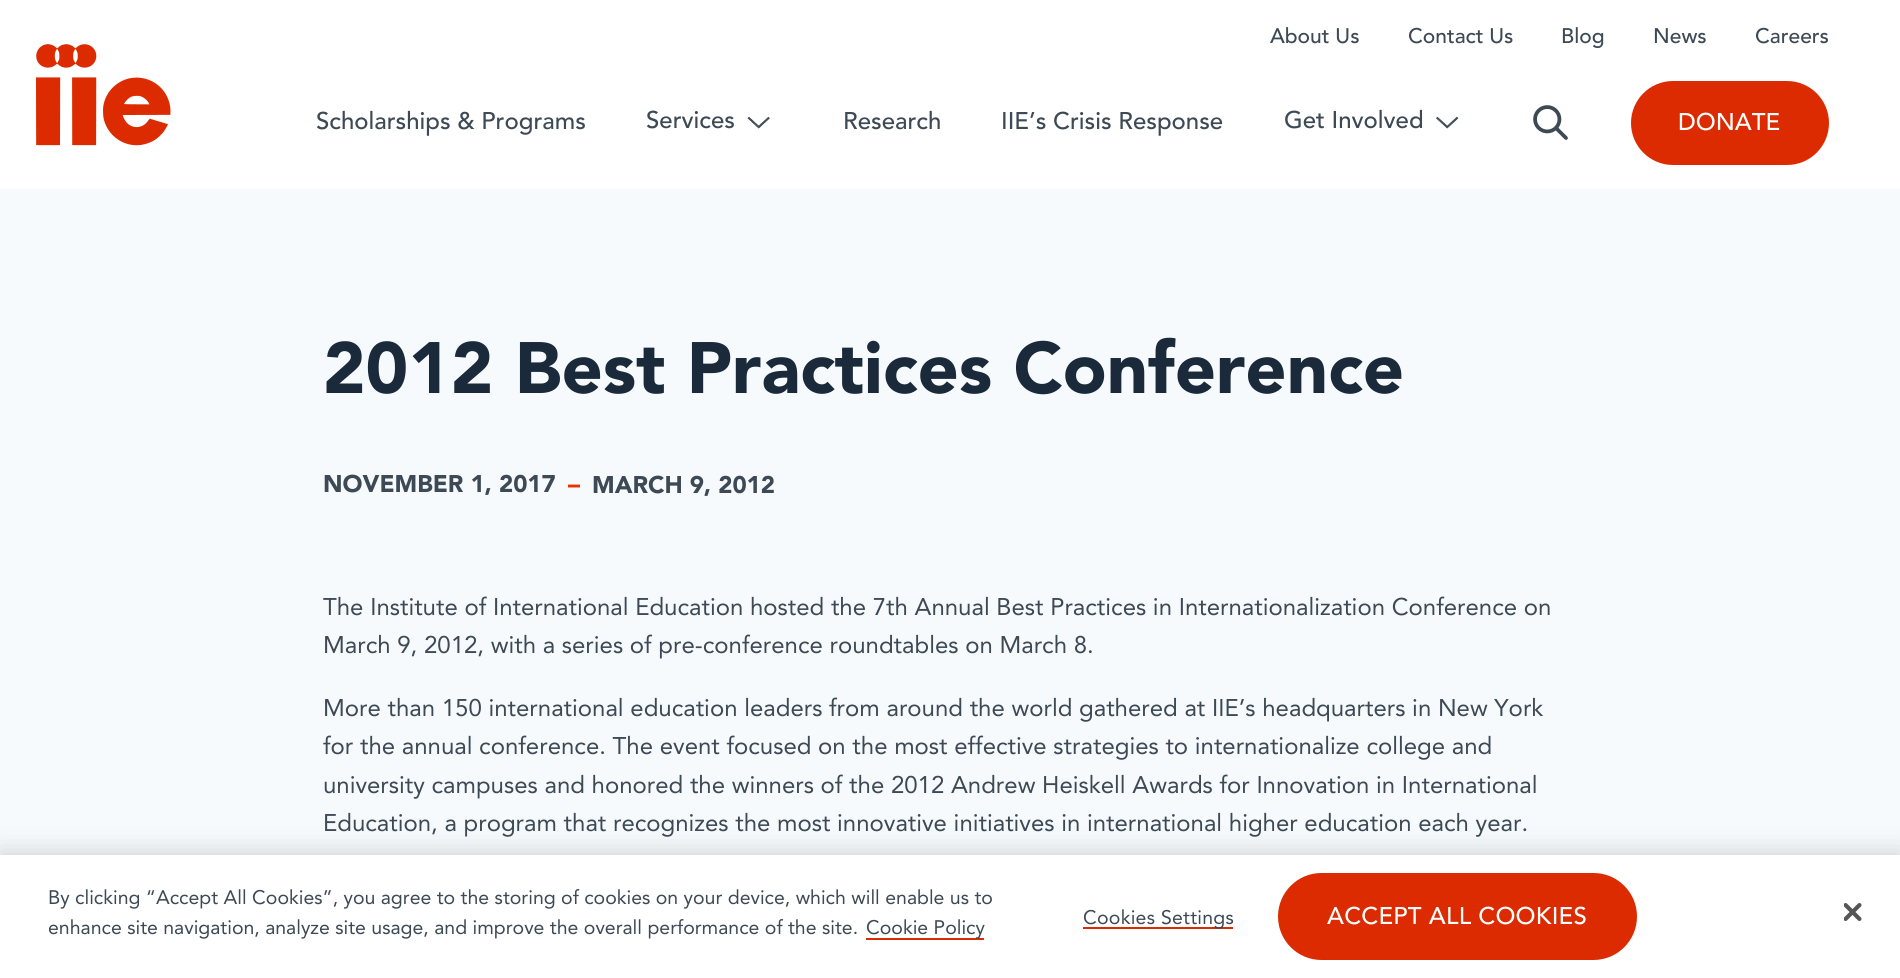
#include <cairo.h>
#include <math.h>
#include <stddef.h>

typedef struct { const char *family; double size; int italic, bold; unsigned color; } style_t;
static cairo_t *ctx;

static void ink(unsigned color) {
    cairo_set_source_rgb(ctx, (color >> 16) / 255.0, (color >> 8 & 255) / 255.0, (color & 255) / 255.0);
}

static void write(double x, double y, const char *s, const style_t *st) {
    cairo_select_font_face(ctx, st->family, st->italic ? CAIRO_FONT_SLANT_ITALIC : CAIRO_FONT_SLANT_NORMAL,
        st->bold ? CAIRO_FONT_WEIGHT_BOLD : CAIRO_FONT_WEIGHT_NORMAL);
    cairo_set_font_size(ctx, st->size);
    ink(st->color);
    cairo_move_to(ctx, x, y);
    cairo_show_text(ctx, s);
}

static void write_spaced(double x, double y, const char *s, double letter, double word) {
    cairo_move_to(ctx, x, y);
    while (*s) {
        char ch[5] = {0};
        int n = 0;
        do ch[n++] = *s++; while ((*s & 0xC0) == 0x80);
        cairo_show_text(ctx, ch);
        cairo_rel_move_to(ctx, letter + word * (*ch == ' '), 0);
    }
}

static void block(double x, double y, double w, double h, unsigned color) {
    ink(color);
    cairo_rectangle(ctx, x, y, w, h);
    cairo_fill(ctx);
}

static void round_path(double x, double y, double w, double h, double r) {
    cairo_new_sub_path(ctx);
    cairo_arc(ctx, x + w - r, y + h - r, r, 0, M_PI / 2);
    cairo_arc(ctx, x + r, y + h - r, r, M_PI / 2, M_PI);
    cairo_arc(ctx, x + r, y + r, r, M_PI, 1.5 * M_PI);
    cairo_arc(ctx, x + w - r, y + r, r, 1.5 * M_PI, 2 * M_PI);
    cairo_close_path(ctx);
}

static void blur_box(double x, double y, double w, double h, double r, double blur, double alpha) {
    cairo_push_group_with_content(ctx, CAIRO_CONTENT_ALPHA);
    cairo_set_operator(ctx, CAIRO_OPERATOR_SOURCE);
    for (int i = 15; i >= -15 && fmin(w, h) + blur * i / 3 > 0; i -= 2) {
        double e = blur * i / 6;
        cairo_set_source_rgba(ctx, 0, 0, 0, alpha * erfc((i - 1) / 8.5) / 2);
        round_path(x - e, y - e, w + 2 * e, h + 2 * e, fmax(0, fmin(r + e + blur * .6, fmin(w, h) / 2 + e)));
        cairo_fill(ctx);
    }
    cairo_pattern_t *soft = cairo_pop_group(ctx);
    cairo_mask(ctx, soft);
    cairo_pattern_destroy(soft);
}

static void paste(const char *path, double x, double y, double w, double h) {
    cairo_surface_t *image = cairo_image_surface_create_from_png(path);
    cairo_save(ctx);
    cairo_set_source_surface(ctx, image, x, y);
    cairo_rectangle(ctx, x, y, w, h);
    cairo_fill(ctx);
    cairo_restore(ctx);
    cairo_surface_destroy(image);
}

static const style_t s1 = {"Avenir Medium", 21, 0, 0, 0x3d4955};
static const style_t s2 = {"Avenir Medium", 24, 0, 0, 0x3d4955};
static const style_t s3 = {"Avenir Medium", 24, 0, 0, 0xffffff};
static const style_t s4 = {"Avenir Black", 72, 0, 0, 0x1a2a3a};
static const style_t s5 = {"Avenir Black", 24, 0, 0, 0x3d4955};
static const style_t s6 = {"Avenir Black", 24, 0, 0, 0xeb3300};
static const style_t s7 = {"Avenir", 24, 0, 0, 0x3d4955};
static const style_t s8 = {"Avenir", 19.5, 0, 0, 0x3d4955};

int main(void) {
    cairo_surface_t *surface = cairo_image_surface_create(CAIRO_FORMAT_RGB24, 1900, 978);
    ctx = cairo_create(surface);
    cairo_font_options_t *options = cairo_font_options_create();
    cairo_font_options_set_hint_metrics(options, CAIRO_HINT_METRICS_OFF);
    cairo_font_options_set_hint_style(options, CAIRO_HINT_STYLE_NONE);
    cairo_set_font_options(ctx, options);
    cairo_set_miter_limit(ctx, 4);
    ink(0xf7fafd);
    cairo_paint(ctx);
    block(0, 0, 1900, 189, 0xffffff);
    paste("pic1.png", 36, 44, 135, 102);
    write(1270, 43, "About Us", &s1);
    write(1408, 43, "Contact Us", &s1);
    write(1561, 43, "Blog", &s1);
    write(1653, 43, "News", &s1);
    write(1755, 43, "Careers", &s1);
    write(316, 129, "Scholarships & Programs", &s2);
    write(646, 128, "Services", &s2);
    paste("pic2.png", 747, 116, 23, 13);
    write(843, 129, "Research", &s2);
    write(1001, 129, "IIE’s Crisis Response", &s2);
    write(1284, 128, "Get Involved", &s2);
    paste("pic3.png", 1436, 116, 23, 13);
    paste("pic4.png", 1533, 105, 35, 35);
    ink(0xdc2b00);
    round_path(1631, 81, 198, 84, 42);
    cairo_fill(ctx);
    write(1678, 130, "DONATE", &s3);
    write(323, 393, "2012 Best Practices Conference", &s4);
    write(323, 492, "NOVEMBER 1, 2017", &s5);
    write(568, 492, "–", &s6);
    write(592, 493, "MARCH 9, 2012", &s5);
    write(323, 615, "The Institute of International Education hosted the 7th Annual Best Practices in Internationalization Conference on", &s7);
    write(323, 653, "March 9, 2012, with a series of pre-conference roundtables on March 8.", &s7);
    write(323, 716, "More than 150 international education leaders from around the world gathered at IIE’s headquarters in New York", &s7);
    write(323, 754, "for the annual conference. The event focused on the most effective strategies to internationalize college and", &s7);
    write(323, 793, "university campuses and honored the winners of the 2012 Andrew Heiskell Awards for Innovation in International", &s7);
    write(323, 831, "Education, a program that recognizes the most innovative initiatives in international higher education each year.", &s7);
    ink(0x000000);
    blur_box(0, 855, 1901, 123, 0, 13.5, 0.2);
    block(0, 855, 1900, 123, 0xffffff);
    write(48, 904, "By clicking “Accept All Cookies”, you agree to the storing of cookies on your device, which will enable us to", &s8);
    write(48, 934, "enhance site navigation, analyze site usage, and improve the overall performance of the site.", &s8);
    block(866, 938, 118, 2, 0xdc2b00);
    write(866, 934, "Cookie Policy", &s8);
    block(1083, 927, 150, 2, 0xdc2b00);
    ink(0x3d4955);
    write_spaced(1083, 924, "Cookies Settings", 0.25, 0);
    ink(0xdc2b00);
    round_path(1279, 874, 357, 85, 42.5);
    cairo_fill_preserve(ctx);
    cairo_stroke(ctx);
    cairo_select_font_face(ctx, "Avenir Medium", CAIRO_FONT_SLANT_NORMAL, CAIRO_FONT_WEIGHT_NORMAL);
    cairo_set_font_size(ctx, 24);
    ink(0xffffff);
    write_spaced(1327, 924, "ACCEPT ALL COOKIES", 0.25, 0);
    paste("pic5.png", 1844, 903, 18, 18);
    cairo_surface_write_to_png(surface, "screenshot.png");
    cairo_font_options_destroy(options);
    cairo_destroy(ctx);
    cairo_surface_destroy(surface);
    return 0;
}
